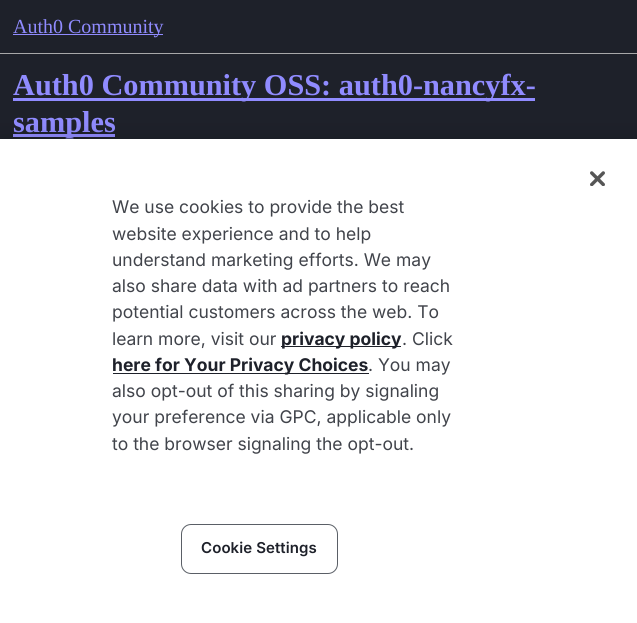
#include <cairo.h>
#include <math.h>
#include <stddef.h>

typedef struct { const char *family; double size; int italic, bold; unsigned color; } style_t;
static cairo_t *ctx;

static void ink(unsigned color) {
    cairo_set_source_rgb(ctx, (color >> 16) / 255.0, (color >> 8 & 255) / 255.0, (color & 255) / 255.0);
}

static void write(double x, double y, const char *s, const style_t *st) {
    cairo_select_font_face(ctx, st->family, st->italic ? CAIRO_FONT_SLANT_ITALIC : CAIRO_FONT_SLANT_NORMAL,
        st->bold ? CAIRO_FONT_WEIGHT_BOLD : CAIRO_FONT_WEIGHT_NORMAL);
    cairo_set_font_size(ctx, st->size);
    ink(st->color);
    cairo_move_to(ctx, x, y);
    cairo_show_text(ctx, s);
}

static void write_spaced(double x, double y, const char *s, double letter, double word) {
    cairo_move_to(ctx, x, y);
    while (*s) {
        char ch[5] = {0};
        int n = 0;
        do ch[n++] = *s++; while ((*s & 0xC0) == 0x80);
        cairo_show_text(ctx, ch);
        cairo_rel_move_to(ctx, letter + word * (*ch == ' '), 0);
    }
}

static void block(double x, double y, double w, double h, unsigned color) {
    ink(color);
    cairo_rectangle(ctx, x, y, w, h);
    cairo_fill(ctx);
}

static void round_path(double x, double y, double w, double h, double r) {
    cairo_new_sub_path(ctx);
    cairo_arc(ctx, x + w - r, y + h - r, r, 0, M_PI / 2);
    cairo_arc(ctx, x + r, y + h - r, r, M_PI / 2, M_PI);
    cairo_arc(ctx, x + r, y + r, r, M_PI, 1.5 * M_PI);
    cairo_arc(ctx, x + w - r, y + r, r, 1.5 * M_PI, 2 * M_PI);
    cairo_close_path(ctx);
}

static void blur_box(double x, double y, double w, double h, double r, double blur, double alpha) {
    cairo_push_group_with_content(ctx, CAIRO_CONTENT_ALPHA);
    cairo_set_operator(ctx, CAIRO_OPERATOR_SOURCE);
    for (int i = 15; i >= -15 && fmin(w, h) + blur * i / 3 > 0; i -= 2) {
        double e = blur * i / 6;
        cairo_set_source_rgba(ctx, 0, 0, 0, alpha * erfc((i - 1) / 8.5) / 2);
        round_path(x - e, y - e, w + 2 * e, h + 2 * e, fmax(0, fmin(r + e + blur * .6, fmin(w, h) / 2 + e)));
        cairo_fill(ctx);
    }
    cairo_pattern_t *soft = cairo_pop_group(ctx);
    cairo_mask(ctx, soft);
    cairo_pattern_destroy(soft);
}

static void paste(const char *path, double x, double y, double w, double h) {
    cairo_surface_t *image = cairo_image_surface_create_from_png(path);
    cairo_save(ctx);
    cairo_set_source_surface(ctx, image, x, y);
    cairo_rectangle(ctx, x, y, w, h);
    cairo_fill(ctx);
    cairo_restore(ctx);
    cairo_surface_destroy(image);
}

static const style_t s1 = {"Liberation Serif", 20, 0, 0, 0x908bff};
static const style_t s2 = {"Liberation Serif", 30.3, 0, 1, 0x908bff};
static const style_t s3 = {"Inter", 17.5, 0, 0, 0x41444b};
static const style_t s4 = {"Inter", 17.5, 0, 1, 0x1e212a};

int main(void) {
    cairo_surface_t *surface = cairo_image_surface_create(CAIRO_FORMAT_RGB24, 637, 623);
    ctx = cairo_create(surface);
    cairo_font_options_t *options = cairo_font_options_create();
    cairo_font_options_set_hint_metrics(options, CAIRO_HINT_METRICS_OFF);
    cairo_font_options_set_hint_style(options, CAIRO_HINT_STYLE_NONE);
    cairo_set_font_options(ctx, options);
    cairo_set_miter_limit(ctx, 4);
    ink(0x1e212a);
    cairo_paint(ctx);
    block(0, 53, 637, 1, 0xa8a8a9);
    block(13, 34, 150, 1, 0x908bff);
    write(13, 33, "Auth0 Community", &s1);
    block(13, 98, 522, 3, 0x908bff);
    write(13, 95, "Auth0 Community OSS: auth0-nancyfx-", &s2);
    block(13, 134, 102, 3, 0x908bff);
    write(13, 132, "samples", &s2);
    ink(0x000000);
    blur_box(0, 139, 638, 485, 0, 11, 0.2);
    block(0, 139, 637, 484, 0xffffff);
    paste("pic1.png", 590, 171, 15, 15);
    write(112, 213, "We use cookies to provide the best", &s3);
    write(112, 240, "website experience and to help", &s3);
    write(112, 266, "understand marketing efforts. We may", &s3);
    write(112, 292, "also share data with ad partners to reach", &s3);
    write(112, 318, "potential customers across the web. To", &s3);
    write(112, 345, "learn more, visit our", &s3);
    block(281, 346, 120, 1, 0x1e212a);
    write(281, 345, "privacy policy", &s4);
    write(402, 345, ". Click", &s3);
    block(113, 373, 256, 1, 0x1e212a);
    write(112, 371, "here for Your Privacy Choices", &s4);
    write(368, 371, ". You may", &s3);
    write(112, 397, "also opt-out of this sharing by signaling", &s3);
    write(112, 423, "your preference via GPC, applicable only", &s3);
    write(112, 450, "to the browser signaling the opt-out.", &s3);
    round_path(181.5, 524.5, 156, 49, 9.5);
    ink(0x5a5f66);
    cairo_set_line_width(ctx, 1);
    cairo_stroke(ctx);
    cairo_select_font_face(ctx, "Inter SemiBold", CAIRO_FONT_SLANT_NORMAL, CAIRO_FONT_WEIGHT_NORMAL);
    cairo_set_font_size(ctx, 15);
    ink(0x1e212a);
    write_spaced(201, 553, "Cookie Settings", 0.1, 0);
    cairo_surface_write_to_png(surface, "screenshot.png");
    cairo_font_options_destroy(options);
    cairo_destroy(ctx);
    cairo_surface_destroy(surface);
    return 0;
}
